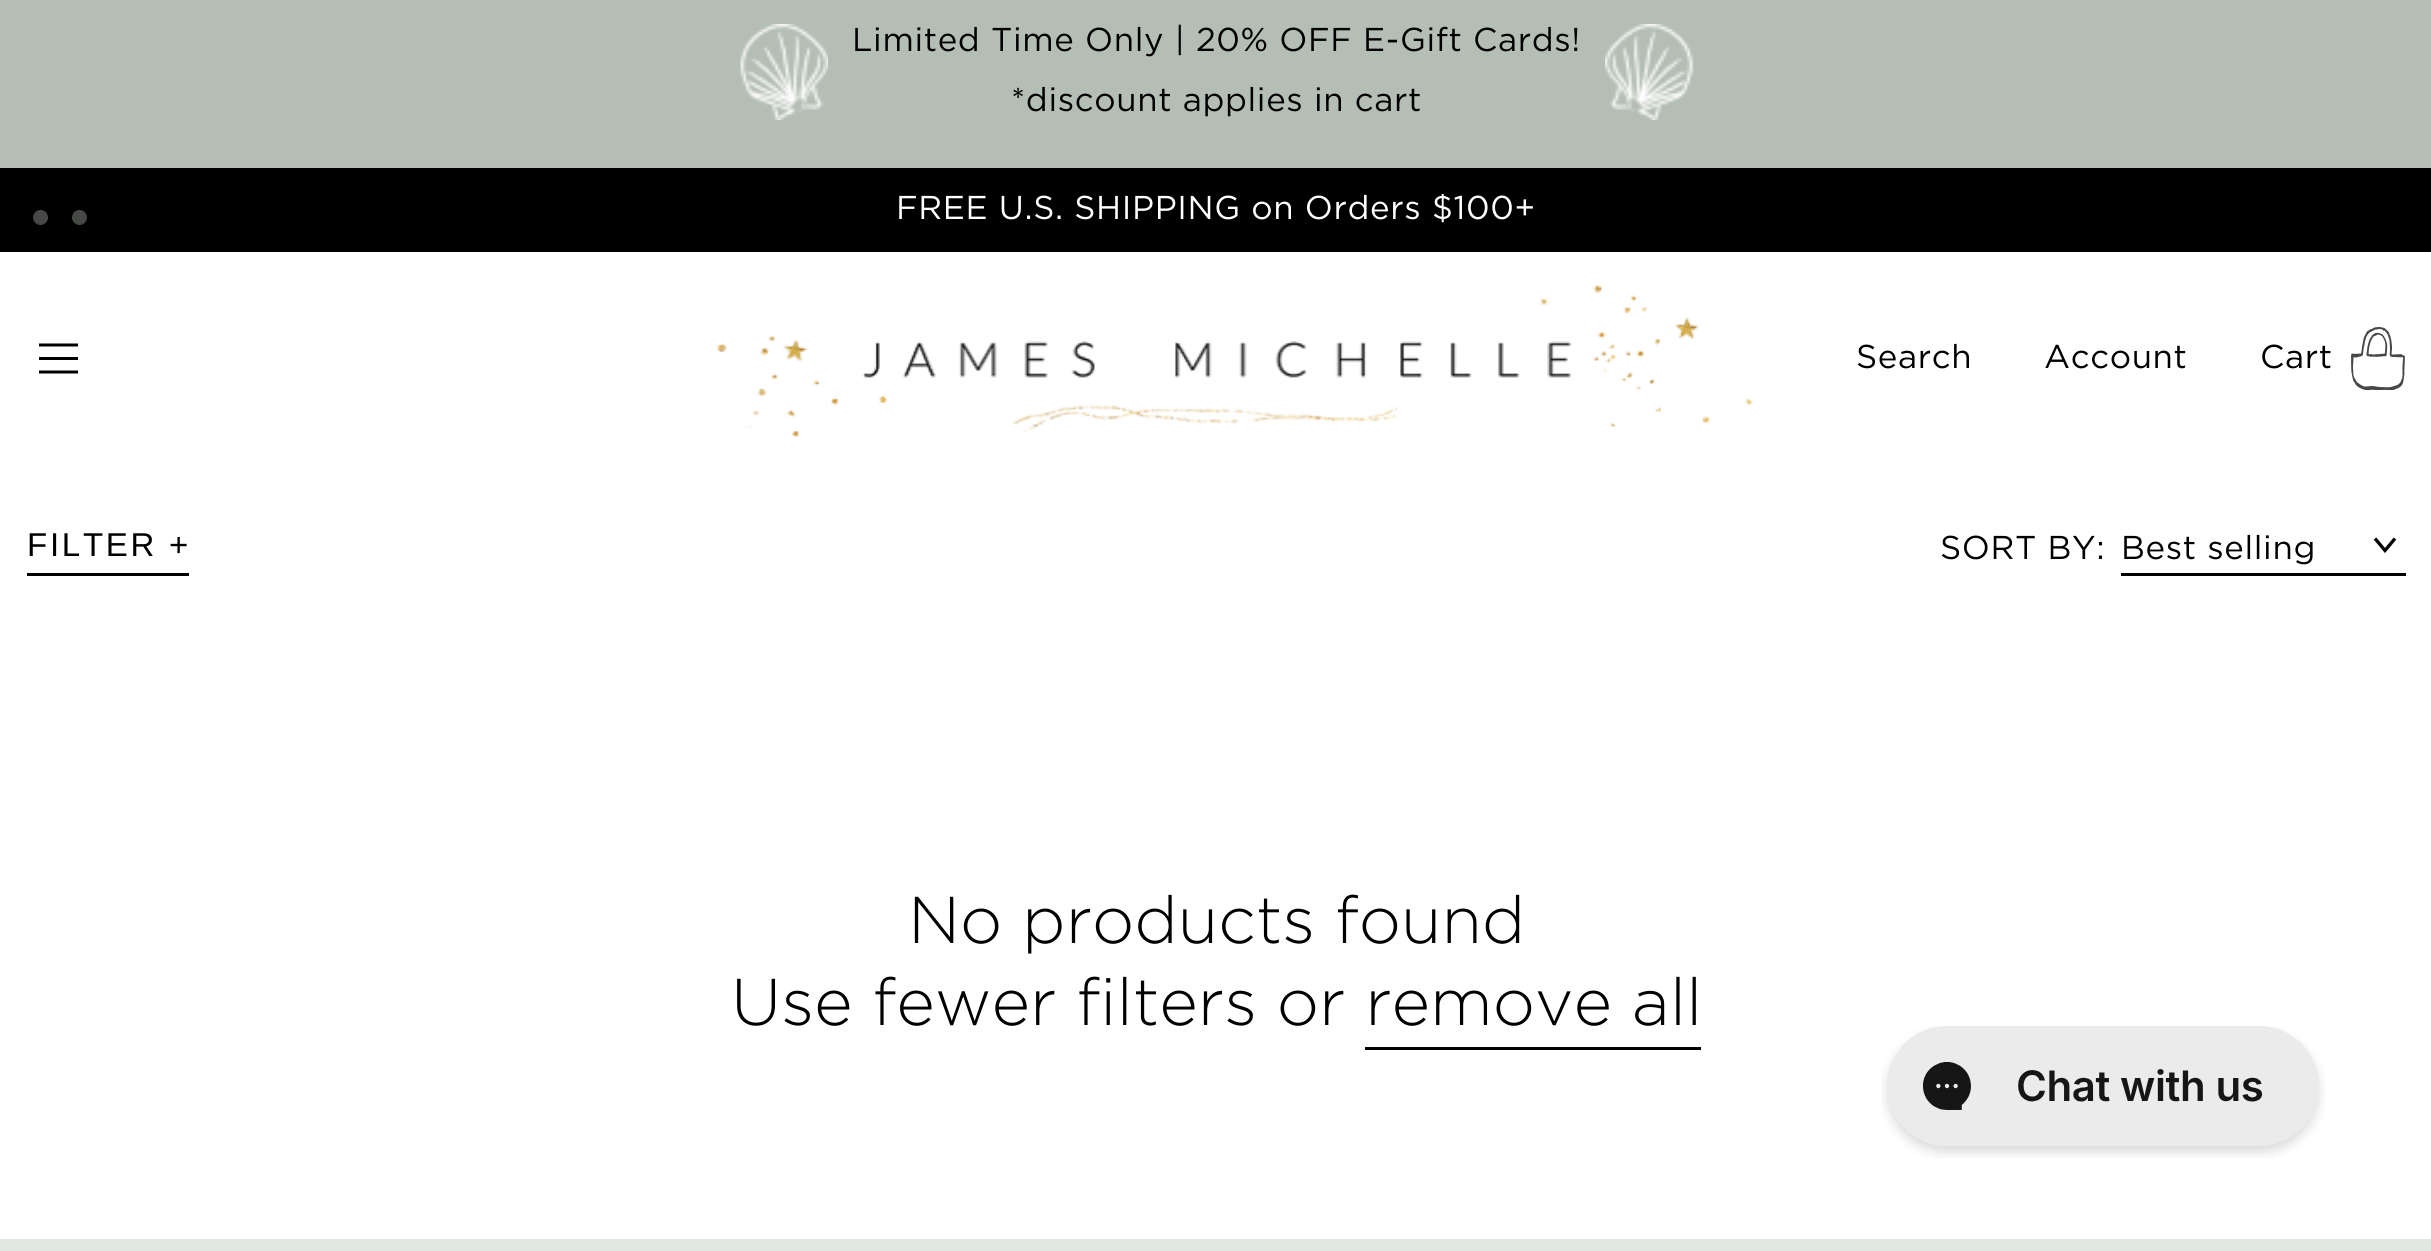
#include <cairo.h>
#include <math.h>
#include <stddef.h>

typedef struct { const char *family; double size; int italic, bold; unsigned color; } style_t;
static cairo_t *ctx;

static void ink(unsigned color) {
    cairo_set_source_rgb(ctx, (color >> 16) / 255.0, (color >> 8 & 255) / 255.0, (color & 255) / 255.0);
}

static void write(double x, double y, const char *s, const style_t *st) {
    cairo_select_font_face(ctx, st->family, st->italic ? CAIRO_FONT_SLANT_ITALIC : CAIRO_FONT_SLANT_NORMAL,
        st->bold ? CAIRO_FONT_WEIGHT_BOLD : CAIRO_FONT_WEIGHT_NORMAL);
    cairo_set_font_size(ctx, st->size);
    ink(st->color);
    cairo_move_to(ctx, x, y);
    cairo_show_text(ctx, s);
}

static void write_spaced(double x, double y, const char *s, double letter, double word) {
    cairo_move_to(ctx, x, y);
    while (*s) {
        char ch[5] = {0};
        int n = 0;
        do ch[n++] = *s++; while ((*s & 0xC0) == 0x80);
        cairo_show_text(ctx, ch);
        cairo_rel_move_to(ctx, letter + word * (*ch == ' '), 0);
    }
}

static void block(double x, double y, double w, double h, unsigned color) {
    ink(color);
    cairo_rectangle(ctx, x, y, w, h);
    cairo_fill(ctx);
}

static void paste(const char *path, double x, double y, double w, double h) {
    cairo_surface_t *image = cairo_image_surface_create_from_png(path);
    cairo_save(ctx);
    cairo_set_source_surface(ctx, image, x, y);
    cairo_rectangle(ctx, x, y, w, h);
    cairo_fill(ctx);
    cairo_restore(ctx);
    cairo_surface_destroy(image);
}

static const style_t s1 = {"Gotham Light", 66, 0, 0, 0x000000};

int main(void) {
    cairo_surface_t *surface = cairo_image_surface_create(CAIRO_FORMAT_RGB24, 2431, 1251);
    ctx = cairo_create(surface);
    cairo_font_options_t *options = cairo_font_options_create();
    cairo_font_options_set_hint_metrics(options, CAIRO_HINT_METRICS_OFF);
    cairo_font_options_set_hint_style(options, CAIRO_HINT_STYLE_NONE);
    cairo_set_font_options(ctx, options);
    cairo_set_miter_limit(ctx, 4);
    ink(0xffffff);
    cairo_paint(ctx);
    block(0, 0, 2431, 168, 0xb4beb5);
    paste("pic1.png", 740, 24, 88, 96);
    cairo_select_font_face(ctx, "Gotham", CAIRO_FONT_SLANT_NORMAL, CAIRO_FONT_WEIGHT_NORMAL);
    cairo_set_font_size(ctx, 33);
    ink(0x000000);
    write_spaced(852, 51, "Limited Time Only | 20% OFF E-Gift Cards!", 0.65, 0);
    write_spaced(1011, 111, "*discount applies in cart", 0.65, 0);
    paste("pic2.png", 1605, 24, 89, 96);
    block(0, 168, 2431, 84, 0x000000);
    ink(0x464846);
    cairo_arc(ctx, 40.5, 217.5, 7.5, 0, 2 * M_PI);
    cairo_fill(ctx);
    cairo_arc(ctx, 79.5, 217.5, 7.5, 0, 2 * M_PI);
    cairo_fill(ctx);
    ink(0xffffff);
    write_spaced(896, 219, "FREE U.S. SHIPPING on Orders $100+", 0.65, 0);
    cairo_new_path(ctx);
    cairo_move_to(ctx, 39, 372);
    cairo_line_to(ctx, 78, 372);
    cairo_move_to(ctx, 39, 345);
    cairo_line_to(ctx, 78, 345);
    ink(0x000000);
    cairo_set_line_width(ctx, 3);
    cairo_stroke(ctx);
    block(39, 357, 39, 3, 0x000000);
    paste("pic3.png", 717, 285, 1037, 152);
    write_spaced(1856, 368, "Search", 0.65, 0);
    write_spaced(2044, 368, "Account", 0.65, 0);
    write_spaced(2260, 368, "Cart", 0.65, 0);
    paste("pic4.png", 2351, 327, 54, 63);
    cairo_select_font_face(ctx, "Liberation Sans", CAIRO_FONT_SLANT_NORMAL, CAIRO_FONT_WEIGHT_NORMAL);
    write_spaced(27, 556, "FILTER +", 2.75, 0);
    block(27, 573, 162, 3, 0x000000);
    cairo_select_font_face(ctx, "Gotham", CAIRO_FONT_SLANT_NORMAL, CAIRO_FONT_WEIGHT_NORMAL);
    write_spaced(1940, 559, "SORT BY:", 0.65, 0);
    write_spaced(2121, 559, "Best selling", 0.65, 0);
    cairo_new_path(ctx);
    cairo_move_to(ctx, 2375, 538.5);
    cairo_line_to(ctx, 2385, 550.5);
    cairo_line_to(ctx, 2395, 538.5);
    cairo_set_line_width(ctx, 3.3);
    cairo_stroke(ctx);
    block(2121, 573, 285, 3, 0x000000);
    write(908, 943, "No products found", &s1);
    write(731, 1025, "Use fewer filters or remove all", &s1);
    block(1365, 1047, 336, 3, 0x000000);
    paste("pic5.png", 1881, 1026, 444, 132);
    block(0, 1239, 2431, 12, 0xdfe8e3);
    cairo_surface_write_to_png(surface, "screenshot.png");
    cairo_font_options_destroy(options);
    cairo_destroy(ctx);
    cairo_surface_destroy(surface);
    return 0;
}
